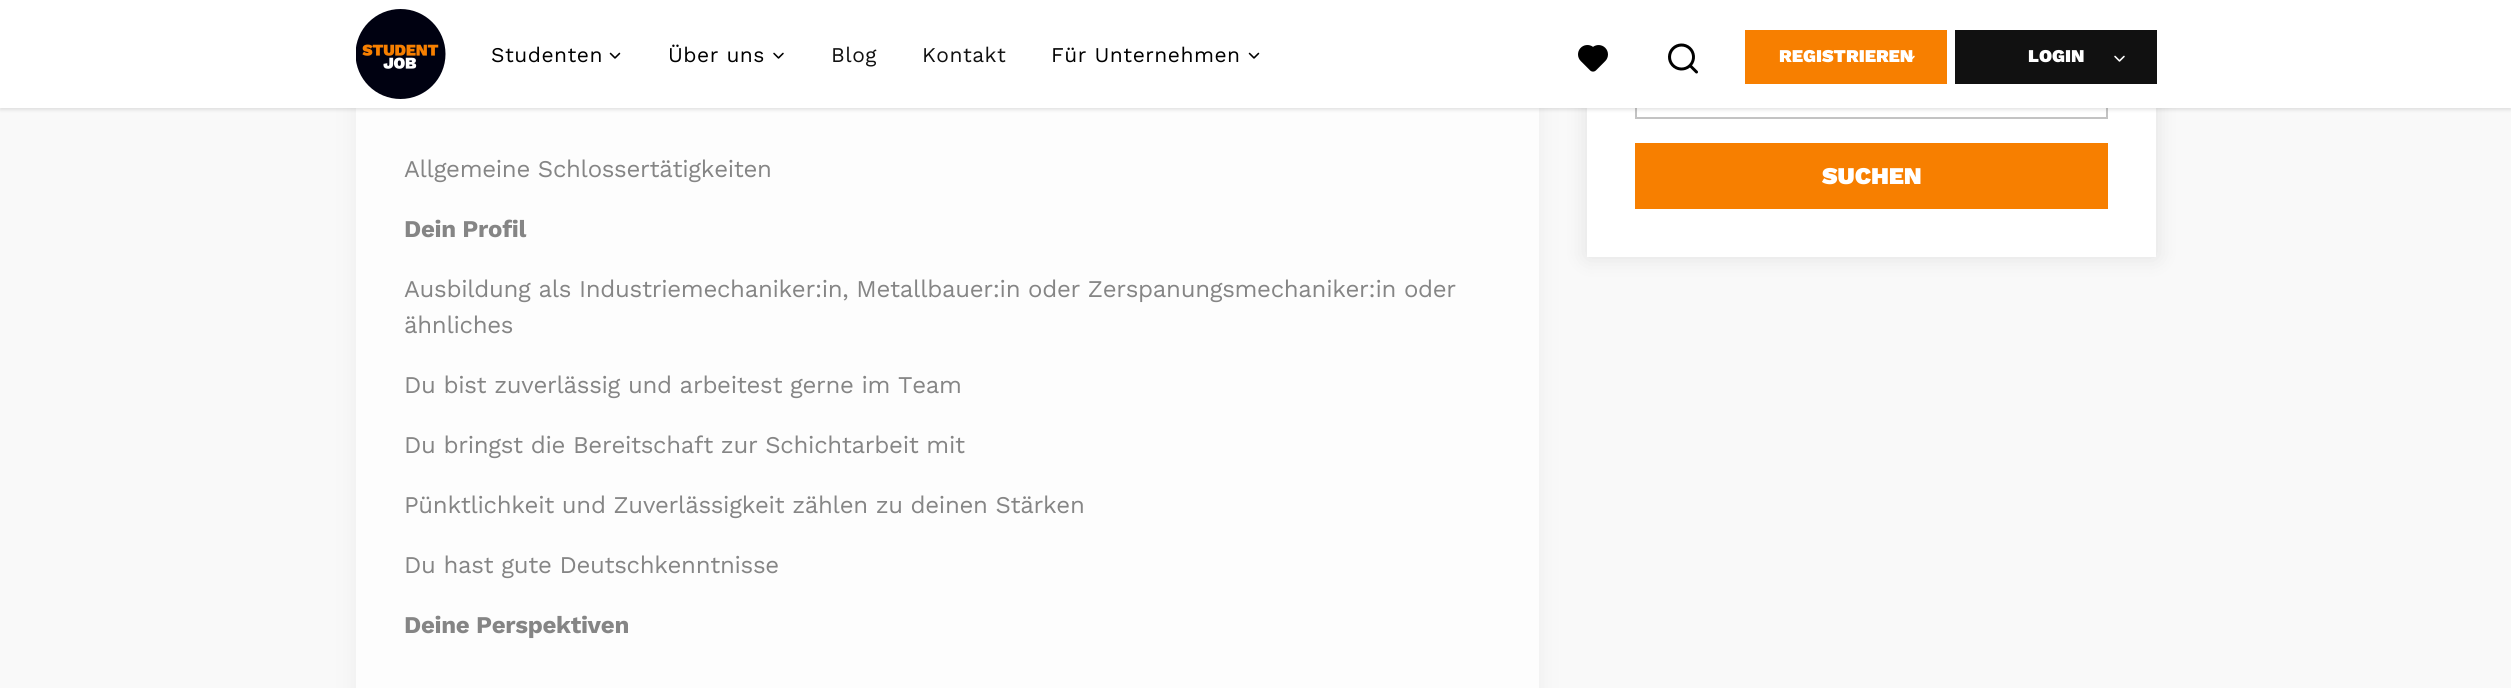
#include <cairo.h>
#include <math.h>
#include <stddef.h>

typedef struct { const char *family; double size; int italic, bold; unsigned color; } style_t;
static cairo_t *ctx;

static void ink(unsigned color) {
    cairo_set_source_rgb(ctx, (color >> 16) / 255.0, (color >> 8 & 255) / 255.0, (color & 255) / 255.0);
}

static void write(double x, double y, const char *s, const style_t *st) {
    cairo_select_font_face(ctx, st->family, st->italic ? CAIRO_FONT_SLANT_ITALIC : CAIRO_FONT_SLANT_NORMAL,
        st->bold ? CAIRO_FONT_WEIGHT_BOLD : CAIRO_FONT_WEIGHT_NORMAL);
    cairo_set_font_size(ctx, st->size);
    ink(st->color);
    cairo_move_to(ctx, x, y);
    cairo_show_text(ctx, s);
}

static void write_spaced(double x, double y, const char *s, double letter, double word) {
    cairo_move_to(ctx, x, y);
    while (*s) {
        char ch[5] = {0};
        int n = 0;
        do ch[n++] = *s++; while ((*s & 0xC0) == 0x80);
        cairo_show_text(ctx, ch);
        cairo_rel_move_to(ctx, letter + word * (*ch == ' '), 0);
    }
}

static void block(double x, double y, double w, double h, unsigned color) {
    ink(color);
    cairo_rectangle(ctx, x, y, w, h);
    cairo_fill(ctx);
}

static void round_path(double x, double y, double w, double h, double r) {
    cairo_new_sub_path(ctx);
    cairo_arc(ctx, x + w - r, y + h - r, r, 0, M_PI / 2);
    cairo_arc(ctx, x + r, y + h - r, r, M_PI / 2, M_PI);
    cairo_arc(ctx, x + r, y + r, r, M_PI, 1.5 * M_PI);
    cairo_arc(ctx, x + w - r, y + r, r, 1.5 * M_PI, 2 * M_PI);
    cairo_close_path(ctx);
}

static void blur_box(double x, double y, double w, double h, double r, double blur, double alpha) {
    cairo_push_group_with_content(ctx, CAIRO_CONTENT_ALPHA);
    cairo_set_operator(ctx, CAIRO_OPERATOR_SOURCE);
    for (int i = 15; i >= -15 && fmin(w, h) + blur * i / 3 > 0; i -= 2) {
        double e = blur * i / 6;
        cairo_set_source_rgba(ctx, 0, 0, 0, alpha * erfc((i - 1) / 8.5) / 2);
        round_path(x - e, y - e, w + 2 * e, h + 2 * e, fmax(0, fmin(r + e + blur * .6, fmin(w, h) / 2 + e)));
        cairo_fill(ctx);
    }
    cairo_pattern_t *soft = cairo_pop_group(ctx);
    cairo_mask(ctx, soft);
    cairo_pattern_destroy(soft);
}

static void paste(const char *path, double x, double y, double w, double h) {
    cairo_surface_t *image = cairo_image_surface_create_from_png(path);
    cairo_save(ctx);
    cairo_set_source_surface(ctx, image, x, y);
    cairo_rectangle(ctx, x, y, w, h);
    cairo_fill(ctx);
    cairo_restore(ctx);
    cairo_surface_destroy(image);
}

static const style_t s1 = {"Work Sans Black", 18, 0, 0, 0xffffff};
static const style_t s2 = {"Work Sans Black", 24, 0, 0, 0xffffff};

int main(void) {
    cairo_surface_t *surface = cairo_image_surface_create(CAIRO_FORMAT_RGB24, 2511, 688);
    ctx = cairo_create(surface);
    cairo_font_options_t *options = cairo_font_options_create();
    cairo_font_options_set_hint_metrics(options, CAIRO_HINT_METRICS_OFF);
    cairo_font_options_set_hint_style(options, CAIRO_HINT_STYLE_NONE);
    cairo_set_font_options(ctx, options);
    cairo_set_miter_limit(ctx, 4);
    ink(0xf9f9f9);
    cairo_paint(ctx);
    ink(0x7d7d7d);
    blur_box(356, -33, 1183, 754, 0, 11, 0.1);
    block(356, 108, 1183, 580, 0xfdfdfd);
    ink(0x000000);
    blur_box(1587, -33, 569, 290, 0, 11, 0.1);
    block(1587, 108, 569, 149, 0xffffff);
    cairo_rectangle(ctx, 1636, 54, 471, 64);
    ink(0xc3c3c3);
    cairo_stroke(ctx);
    ink(0x000000);
    blur_box(0, 2, 2511, 108, 0, 1.5, 0.1);
    block(0, 0, 2511, 108, 0xffffff);
    paste("pic1.png", 356, 9, 90, 90);
    cairo_select_font_face(ctx, "Work Sans", CAIRO_FONT_SLANT_NORMAL, CAIRO_FONT_WEIGHT_NORMAL);
    cairo_set_font_size(ctx, 21);
    ink(0x000000);
    write_spaced(491, 62, "Studenten", 0.5, 0);
    paste("pic2.png", 609, 52, 12, 7);
    write_spaced(668, 62, "Über uns", 0.5, 0);
    paste("pic3.png", 773, 52, 11, 7);
    ink(0x111111);
    write_spaced(831, 62, "Blog", 0.5, 0);
    write_spaced(922, 62, "Kontakt", 0.5, 0);
    ink(0x000000);
    write_spaced(1051, 62, "Für Unternehmen", 0.5, 0);
    paste("pic2.png", 1248, 52, 12, 7);
    paste("pic4.png", 1578, 45, 30, 27);
    paste("pic5.png", 1668, 43, 30, 31);
    block(1745, 30, 202, 54, 0xf77f00);
    write(1779, 62, "REGISTRIEREN", &s1);
    paste("pic6.png", 1904, 55, 11, 5);
    block(1955, 30, 202, 54, 0x111111);
    write(2028, 62, "LOGIN", &s1);
    paste("pic7.png", 2114, 55, 11, 7);
    cairo_select_font_face(ctx, "Work Sans", CAIRO_FONT_SLANT_NORMAL, CAIRO_FONT_WEIGHT_NORMAL);
    cairo_set_font_size(ctx, 24);
    ink(0x858585);
    write_spaced(404, 177, "Allgemeine Schlossertätigkeiten", -0.3, 0);
    cairo_select_font_face(ctx, "Work Sans", CAIRO_FONT_SLANT_NORMAL, CAIRO_FONT_WEIGHT_BOLD);
    write_spaced(404, 237, "Dein Profil", -0.3, 0);
    cairo_select_font_face(ctx, "Work Sans", CAIRO_FONT_SLANT_NORMAL, CAIRO_FONT_WEIGHT_NORMAL);
    write_spaced(404, 297, "Ausbildung als Industriemechaniker:in, Metallbauer:in oder Zerspanungsmechaniker:in oder", -0.3, 0);
    write_spaced(404, 333, "ähnliches", -0.3, 0);
    write_spaced(404, 393, "Du bist zuverlässig und arbeitest gerne im Team", -0.3, 0);
    write_spaced(404, 453, "Du bringst die Bereitschaft zur Schichtarbeit mit", -0.3, 0);
    write_spaced(404, 513, "Pünktlichkeit und Zuverlässigkeit zählen zu deinen Stärken", -0.3, 0);
    write_spaced(404, 573, "Du hast gute Deutschkenntnisse", -0.3, 0);
    cairo_select_font_face(ctx, "Work Sans", CAIRO_FONT_SLANT_NORMAL, CAIRO_FONT_WEIGHT_BOLD);
    write_spaced(404, 633, "Deine Perspektiven", -0.3, 0);
    block(1635, 143, 473, 66, 0xf77f00);
    write(1822, 184, "SUCHEN", &s2);
    cairo_surface_write_to_png(surface, "screenshot.png");
    cairo_font_options_destroy(options);
    cairo_destroy(ctx);
    cairo_surface_destroy(surface);
    return 0;
}
